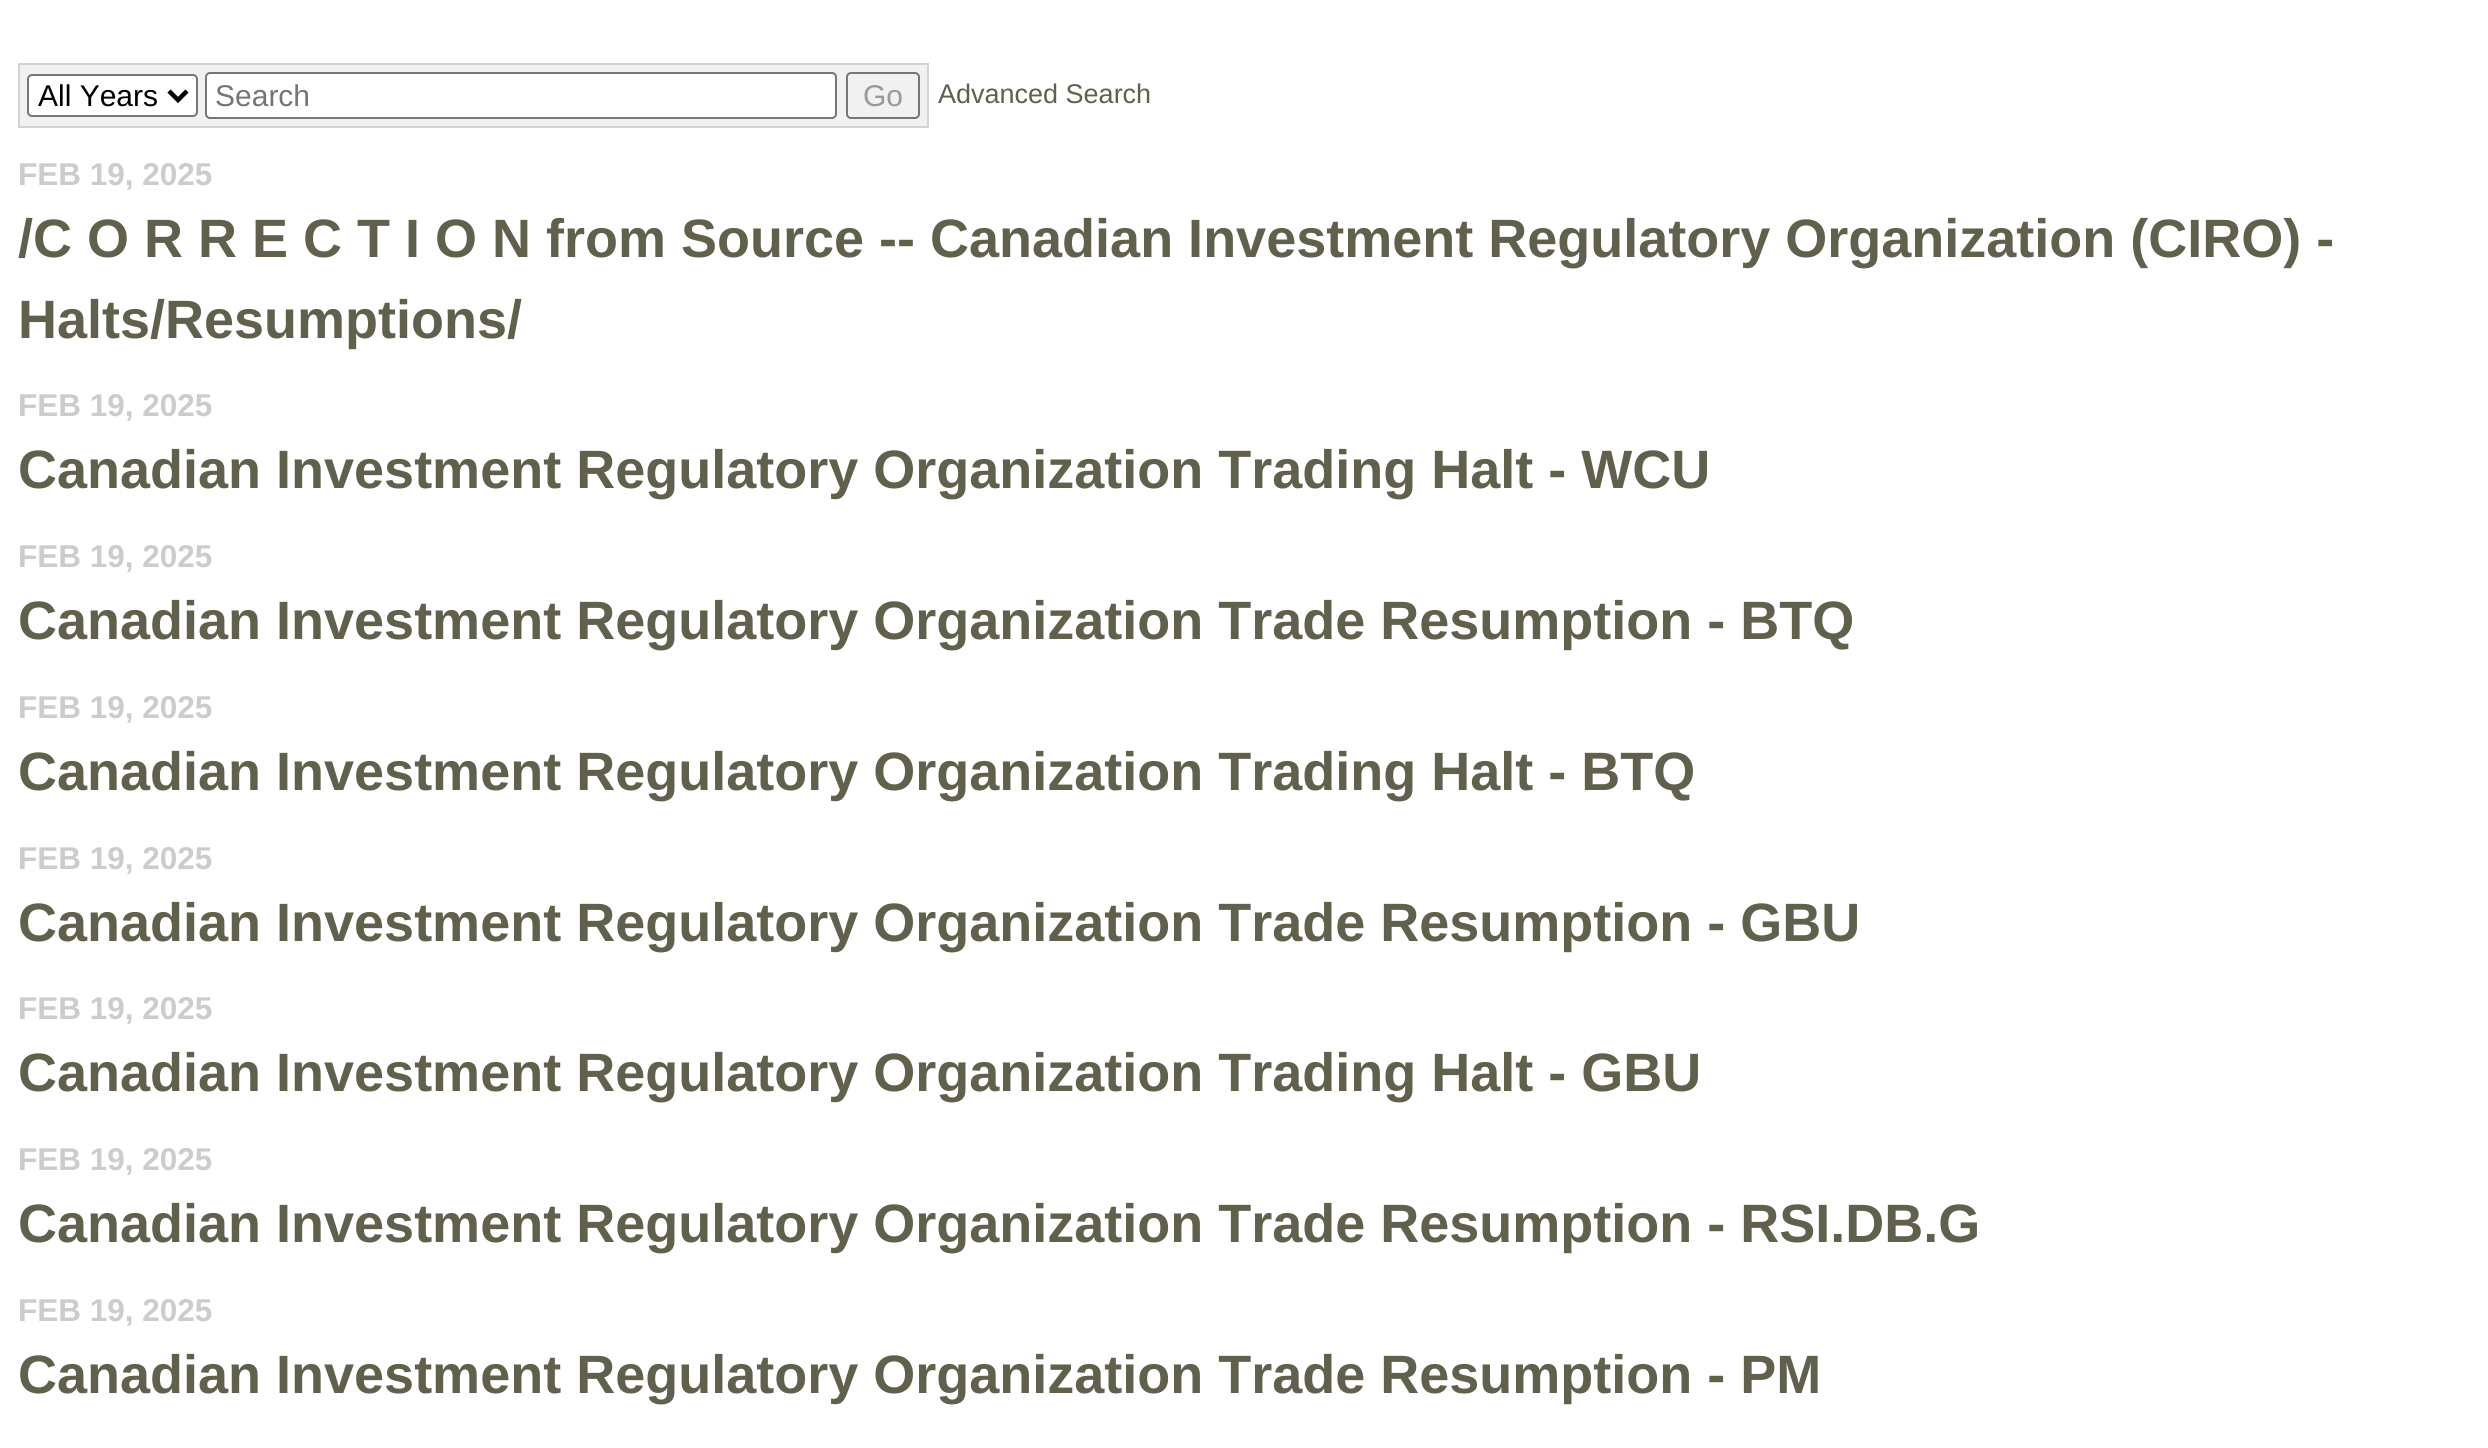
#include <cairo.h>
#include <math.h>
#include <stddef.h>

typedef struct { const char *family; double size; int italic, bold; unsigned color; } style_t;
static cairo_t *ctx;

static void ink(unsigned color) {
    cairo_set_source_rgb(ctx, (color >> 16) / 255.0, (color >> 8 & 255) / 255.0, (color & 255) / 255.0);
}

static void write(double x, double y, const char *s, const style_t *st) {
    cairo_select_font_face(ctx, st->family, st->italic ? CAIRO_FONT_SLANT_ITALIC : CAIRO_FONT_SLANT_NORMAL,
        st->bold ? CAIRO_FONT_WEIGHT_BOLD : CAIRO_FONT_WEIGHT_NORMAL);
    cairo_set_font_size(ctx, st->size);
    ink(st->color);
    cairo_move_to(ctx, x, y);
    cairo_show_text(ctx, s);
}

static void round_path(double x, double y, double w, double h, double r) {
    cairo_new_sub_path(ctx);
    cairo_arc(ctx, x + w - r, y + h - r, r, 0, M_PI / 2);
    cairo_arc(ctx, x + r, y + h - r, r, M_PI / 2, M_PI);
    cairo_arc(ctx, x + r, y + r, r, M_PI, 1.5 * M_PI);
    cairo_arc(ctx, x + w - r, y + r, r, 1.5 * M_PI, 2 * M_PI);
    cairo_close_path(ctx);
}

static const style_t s1 = {"Liberation Sans", 30, 0, 0, 0x000000};
static const style_t s2 = {"Liberation Sans", 30, 0, 0, 0x757575};
static const style_t s3 = {"Liberation Sans", 30, 0, 0, 0x999999};
static const style_t s4 = {"Liberation Sans", 27, 0, 0, 0x60604d};
static const style_t s5 = {"Liberation Sans", 31.5, 0, 1, 0xcccccc};
static const style_t s6 = {"Liberation Sans", 54, 0, 1, 0x60604d};

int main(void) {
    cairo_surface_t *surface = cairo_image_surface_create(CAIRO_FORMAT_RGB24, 2488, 1448);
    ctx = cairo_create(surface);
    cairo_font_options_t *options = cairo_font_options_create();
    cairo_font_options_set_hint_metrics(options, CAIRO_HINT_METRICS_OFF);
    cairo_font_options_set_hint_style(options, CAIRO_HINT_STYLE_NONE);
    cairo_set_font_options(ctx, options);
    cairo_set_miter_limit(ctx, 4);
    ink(0xffffff);
    cairo_paint(ctx);
    ink(0xf1f1f1);
    cairo_rectangle(ctx, 19, 64, 909, 63);
    cairo_fill_preserve(ctx);
    ink(0xd3d3d3);
    cairo_stroke(ctx);
    ink(0xffffff);
    round_path(28, 75, 169, 41, 4);
    cairo_fill_preserve(ctx);
    ink(0x767676);
    cairo_stroke(ctx);
    cairo_new_path(ctx);
    cairo_move_to(ctx, 169, 91);
    cairo_line_to(ctx, 178, 100);
    cairo_line_to(ctx, 187, 91);
    ink(0x000000);
    cairo_set_line_width(ctx, 4.5);
    cairo_stroke(ctx);
    write(38, 106, "All Years", &s1);
    ink(0xffffff);
    round_path(206, 73, 630, 45, 4);
    cairo_fill_preserve(ctx);
    ink(0x767676);
    cairo_set_line_width(ctx, 2);
    cairo_stroke(ctx);
    write(215, 106, "Search", &s2);
    round_path(847, 73, 72, 45, 4);
    ink(0x767676);
    cairo_stroke(ctx);
    write(863, 106, "Go", &s3);
    write(938, 103, "Advanced Search", &s4);
    write(18, 185, "FEB 19, 2025", &s5);
    write(18, 257, "/C O R R E C T I O N from Source -- Canadian Investment Regulatory Organization (CIRO) -", &s6);
    write(18, 338, "Halts/Resumptions/", &s6);
    write(18, 416, "FEB 19, 2025", &s5);
    write(18, 488, "Canadian Investment Regulatory Organization Trading Halt - WCU", &s6);
    write(18, 567, "FEB 19, 2025", &s5);
    write(18, 639, "Canadian Investment Regulatory Organization Trade Resumption - BTQ", &s6);
    write(18, 718, "FEB 19, 2025", &s5);
    write(18, 790, "Canadian Investment Regulatory Organization Trading Halt - BTQ", &s6);
    write(18, 869, "FEB 19, 2025", &s5);
    write(18, 941, "Canadian Investment Regulatory Organization Trade Resumption - GBU", &s6);
    write(18, 1019, "FEB 19, 2025", &s5);
    write(18, 1091, "Canadian Investment Regulatory Organization Trading Halt - GBU", &s6);
    write(18, 1170, "FEB 19, 2025", &s5);
    write(18, 1242, "Canadian Investment Regulatory Organization Trade Resumption - RSI.DB.G", &s6);
    write(18, 1321, "FEB 19, 2025", &s5);
    write(18, 1393, "Canadian Investment Regulatory Organization Trade Resumption - PM", &s6);
    cairo_surface_write_to_png(surface, "screenshot.png");
    cairo_font_options_destroy(options);
    cairo_destroy(ctx);
    cairo_surface_destroy(surface);
    return 0;
}
